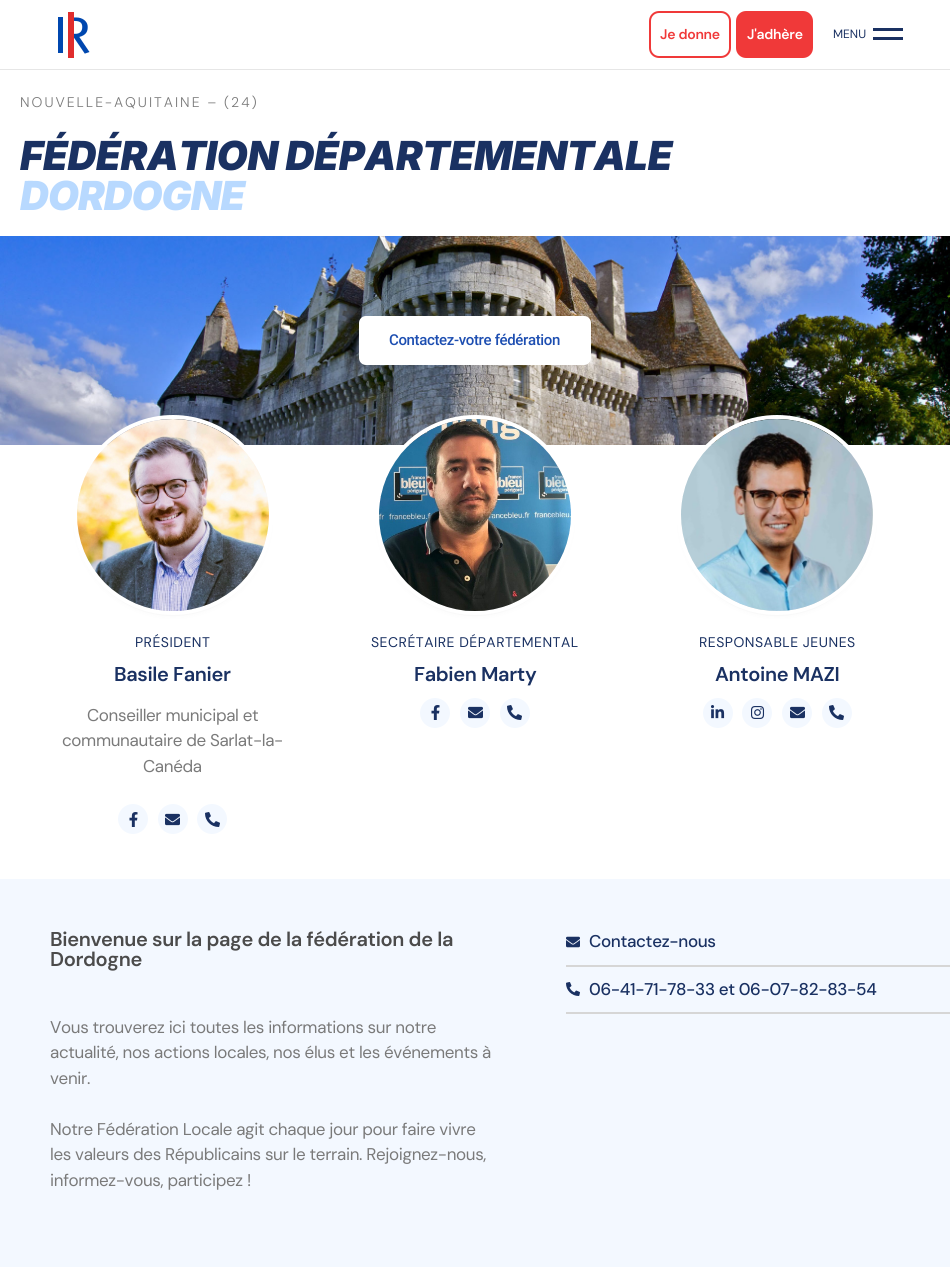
#include <cairo.h>
#include <math.h>
#include <stddef.h>

typedef struct { const char *family; double size; int italic, bold; unsigned color; } style_t;
static cairo_t *ctx;

static void ink(unsigned color) {
    cairo_set_source_rgb(ctx, (color >> 16) / 255.0, (color >> 8 & 255) / 255.0, (color & 255) / 255.0);
}

static void write(double x, double y, const char *s, const style_t *st) {
    cairo_select_font_face(ctx, st->family, st->italic ? CAIRO_FONT_SLANT_ITALIC : CAIRO_FONT_SLANT_NORMAL,
        st->bold ? CAIRO_FONT_WEIGHT_BOLD : CAIRO_FONT_WEIGHT_NORMAL);
    cairo_set_font_size(ctx, st->size);
    ink(st->color);
    cairo_move_to(ctx, x, y);
    cairo_show_text(ctx, s);
}

static void write_spaced(double x, double y, const char *s, double letter, double word) {
    cairo_move_to(ctx, x, y);
    while (*s) {
        char ch[5] = {0};
        int n = 0;
        do ch[n++] = *s++; while ((*s & 0xC0) == 0x80);
        cairo_show_text(ctx, ch);
        cairo_rel_move_to(ctx, letter + word * (*ch == ' '), 0);
    }
}

static void block(double x, double y, double w, double h, unsigned color) {
    ink(color);
    cairo_rectangle(ctx, x, y, w, h);
    cairo_fill(ctx);
}

static void round_path(double x, double y, double w, double h, double r) {
    cairo_new_sub_path(ctx);
    cairo_arc(ctx, x + w - r, y + h - r, r, 0, M_PI / 2);
    cairo_arc(ctx, x + r, y + h - r, r, M_PI / 2, M_PI);
    cairo_arc(ctx, x + r, y + r, r, M_PI, 1.5 * M_PI);
    cairo_arc(ctx, x + w - r, y + r, r, 1.5 * M_PI, 2 * M_PI);
    cairo_close_path(ctx);
}

static void blur_box(double x, double y, double w, double h, double r, double blur, double alpha) {
    cairo_push_group_with_content(ctx, CAIRO_CONTENT_ALPHA);
    cairo_set_operator(ctx, CAIRO_OPERATOR_SOURCE);
    for (int i = 15; i >= -15 && fmin(w, h) + blur * i / 3 > 0; i -= 2) {
        double e = blur * i / 6;
        cairo_set_source_rgba(ctx, 0, 0, 0, alpha * erfc((i - 1) / 8.5) / 2);
        round_path(x - e, y - e, w + 2 * e, h + 2 * e, fmax(0, fmin(r + e + blur * .6, fmin(w, h) / 2 + e)));
        cairo_fill(ctx);
    }
    cairo_pattern_t *soft = cairo_pop_group(ctx);
    cairo_mask(ctx, soft);
    cairo_pattern_destroy(soft);
}

static void paste(const char *path, double x, double y, double w, double h) {
    cairo_surface_t *image = cairo_image_surface_create_from_png(path);
    cairo_save(ctx);
    cairo_set_source_surface(ctx, image, x, y);
    cairo_rectangle(ctx, x, y, w, h);
    cairo_fill(ctx);
    cairo_restore(ctx);
    cairo_surface_destroy(image);
}

static const style_t s1 = {"DM Sans", 12, 0, 0, 0x1a3162};

int main(void) {
    cairo_surface_t *surface = cairo_image_surface_create(CAIRO_FORMAT_RGB24, 950, 1267);
    ctx = cairo_create(surface);
    cairo_font_options_t *options = cairo_font_options_create();
    cairo_font_options_set_hint_metrics(options, CAIRO_HINT_METRICS_OFF);
    cairo_font_options_set_hint_style(options, CAIRO_HINT_STYLE_NONE);
    cairo_set_font_options(ctx, options);
    cairo_set_miter_limit(ctx, 4);
    ink(0xffffff);
    cairo_paint(ctx);
    block(0, 69, 950, 1, 0xe6e6e6);
    paste("pic1.png", 58, 12, 32, 46);
    round_path(650, 12, 80, 45, 9);
    ink(0xf03939);
    cairo_stroke(ctx);
    cairo_select_font_face(ctx, "DM Sans SemiBold", CAIRO_FONT_SLANT_NORMAL, CAIRO_FONT_WEIGHT_NORMAL);
    cairo_set_font_size(ctx, 14);
    write_spaced(660, 39, "Je donne", -0.25, 0);
    round_path(737, 12, 75, 45, 9);
    cairo_fill_preserve(ctx);
    cairo_stroke(ctx);
    ink(0xffffff);
    write_spaced(747, 39, "J'adhère", -0.25, 0);
    write(833, 38, "MENU", &s1);
    block(873, 28, 30, 3, 0x1a3162);
    block(873, 37, 30, 3, 0x1a3162);
    cairo_select_font_face(ctx, "DM Sans Light", CAIRO_FONT_SLANT_NORMAL, CAIRO_FONT_WEIGHT_NORMAL);
    cairo_set_font_size(ctx, 14);
    ink(0x7a7a7a);
    write_spaced(20, 107, "NOUVELLE-AQUITAINE – (24)", 2, 0);
    cairo_select_font_face(ctx, "Inter Black", CAIRO_FONT_SLANT_ITALIC, CAIRO_FONT_WEIGHT_NORMAL);
    cairo_set_font_size(ctx, 40);
    ink(0x1a3162);
    write_spaced(20, 170, "FÉDÉRATION DÉPARTEMENTALE", -0.35, 0);
    ink(0xb8d9ff);
    write_spaced(20, 210, "DORDOGNE", -1, 0);
    paste("pic2.png", 0, 236, 950, 209);
    ink(0xffffff);
    round_path(359, 316, 232, 49, 7);
    cairo_fill(ctx);
    cairo_select_font_face(ctx, "Roboto Medium", CAIRO_FONT_SLANT_NORMAL, CAIRO_FONT_WEIGHT_NORMAL);
    cairo_set_font_size(ctx, 15);
    ink(0x1d4eb1);
    write_spaced(389, 345, "Contactez-votre fédération", -0.35, 0);
    ink(0x000000);
    blur_box(85, 431, 176, 176, 88, 5, 0.5);
    cairo_arc(ctx, 173, 515, 98, 0, 2 * M_PI);
    ink(0xffffff);
    cairo_set_line_width(ctx, 4);
    cairo_stroke(ctx);
    paste("pic3.png", 77, 419, 192, 192);
    cairo_select_font_face(ctx, "DM Sans", CAIRO_FONT_SLANT_NORMAL, CAIRO_FONT_WEIGHT_NORMAL);
    cairo_set_font_size(ctx, 14);
    ink(0x1a3162);
    write_spaced(135, 647, "PRÉSIDENT", 0.5, 0);
    cairo_select_font_face(ctx, "DM Sans SemiBold", CAIRO_FONT_SLANT_NORMAL, CAIRO_FONT_WEIGHT_NORMAL);
    cairo_set_font_size(ctx, 20);
    write_spaced(114, 681, "Basile Fanier", -0.35, 0);
    cairo_select_font_face(ctx, "DM Sans", CAIRO_FONT_SLANT_NORMAL, CAIRO_FONT_WEIGHT_NORMAL);
    cairo_set_font_size(ctx, 17);
    ink(0x7a7a7a);
    write_spaced(87, 721, "Conseiller municipal et", -0.35, 0);
    write_spaced(62, 746, "communautaire de Sarlat-la-", -0.35, 0);
    write_spaced(143, 772, "Canéda", -0.35, 0);
    ink(0xf3f8ff);
    cairo_new_path(ctx);
    cairo_arc(ctx, 133, 819, 15, 0, 2 * M_PI);
    cairo_fill(ctx);
    paste("pic4.png", 129, 812, 9, 15);
    cairo_arc(ctx, 173, 819, 15, 0, 2 * M_PI);
    cairo_fill(ctx);
    paste("pic5.png", 165, 813, 15, 13);
    cairo_arc(ctx, 212, 819, 15, 0, 2 * M_PI);
    cairo_fill(ctx);
    paste("pic6.png", 205, 812, 15, 15);
    ink(0x000000);
    blur_box(387, 431, 176, 176, 88, 5, 0.5);
    cairo_arc(ctx, 475, 515, 98, 0, 2 * M_PI);
    ink(0xffffff);
    cairo_stroke(ctx);
    paste("pic7.png", 379, 419, 192, 192);
    cairo_set_font_size(ctx, 14);
    ink(0x1a3162);
    write_spaced(371, 647, "SECRÉTAIRE DÉPARTEMENTAL", 0.5, 0);
    cairo_select_font_face(ctx, "DM Sans SemiBold", CAIRO_FONT_SLANT_NORMAL, CAIRO_FONT_WEIGHT_NORMAL);
    cairo_set_font_size(ctx, 20);
    write_spaced(414, 681, "Fabien Marty", -0.35, 0);
    ink(0xf3f8ff);
    cairo_new_path(ctx);
    cairo_arc(ctx, 435, 713, 15, 0, 2 * M_PI);
    cairo_fill(ctx);
    paste("pic4.png", 431, 705, 9, 15);
    cairo_arc(ctx, 475, 713, 15, 0, 2 * M_PI);
    cairo_fill(ctx);
    paste("pic5.png", 468, 706, 15, 13);
    cairo_arc(ctx, 515, 713, 15, 0, 2 * M_PI);
    cairo_fill(ctx);
    paste("pic6.png", 507, 705, 15, 15);
    ink(0x000000);
    blur_box(689, 431, 176, 176, 88, 5, 0.5);
    cairo_arc(ctx, 777, 515, 98, 0, 2 * M_PI);
    ink(0xffffff);
    cairo_stroke(ctx);
    paste("pic8.png", 681, 419, 192, 192);
    cairo_select_font_face(ctx, "DM Sans", CAIRO_FONT_SLANT_NORMAL, CAIRO_FONT_WEIGHT_NORMAL);
    cairo_set_font_size(ctx, 14);
    ink(0x1a3162);
    write_spaced(699, 647, "RESPONSABLE JEUNES", 0.5, 0);
    cairo_select_font_face(ctx, "DM Sans SemiBold", CAIRO_FONT_SLANT_NORMAL, CAIRO_FONT_WEIGHT_NORMAL);
    cairo_set_font_size(ctx, 20);
    write_spaced(715, 681, "Antoine MAZI", -0.35, 0);
    ink(0xf3f8ff);
    cairo_new_path(ctx);
    cairo_arc(ctx, 718, 713, 15, 0, 2 * M_PI);
    cairo_fill(ctx);
    paste("pic9.png", 711, 705, 14, 14);
    cairo_arc(ctx, 757, 713, 15, 0, 2 * M_PI);
    cairo_fill(ctx);
    paste("pic10.png", 751, 706, 14, 13);
    cairo_arc(ctx, 797, 713, 15, 0, 2 * M_PI);
    cairo_fill(ctx);
    paste("pic5.png", 790, 706, 15, 13);
    cairo_arc(ctx, 837, 713, 15, 0, 2 * M_PI);
    cairo_fill(ctx);
    paste("pic6.png", 829, 705, 15, 15);
    block(0, 879, 950, 388, 0xf3f8ff);
    ink(0x4b4b4b);
    write_spaced(50, 946, "Bienvenue sur la page de la fédération de la", -0.35, 0);
    write_spaced(50, 966, "Dordogne", -0.35, 0);
    cairo_select_font_face(ctx, "DM Sans", CAIRO_FONT_SLANT_NORMAL, CAIRO_FONT_WEIGHT_NORMAL);
    cairo_set_font_size(ctx, 17);
    ink(0x7a7a7a);
    write_spaced(50, 1033, "Vous trouverez ici toutes les informations sur notre", -0.35, 0);
    write_spaced(50, 1058, "actualité, nos actions locales, nos élus et les événements à", -0.35, 0);
    write_spaced(50, 1084, "venir.", -0.35, 0);
    write_spaced(50, 1135, "Notre Fédération Locale agit chaque jour pour faire vivre", -0.35, 0);
    write_spaced(50, 1160, "les valeurs des Républicains sur le terrain. Rejoignez-nous,", -0.35, 0);
    write_spaced(50, 1186, "informez-vous, participez !", -0.35, 0);
    paste("pic11.png", 566, 936, 14, 12);
    cairo_select_font_face(ctx, "DM Sans Medium", CAIRO_FONT_SLANT_NORMAL, CAIRO_FONT_WEIGHT_NORMAL);
    ink(0x1a3162);
    write_spaced(589, 947, "Contactez-nous", -0.35, 0);
    block(566, 965, 384, 2, 0xd6d6d6);
    paste("pic12.png", 566, 982, 14, 14);
    ink(0x1a3162);
    write_spaced(589, 995, "06-41-71-78-33 et 06-07-82-83-54", -0.35, 0);
    block(566, 1012, 384, 2, 0xd6d6d6);
    cairo_surface_write_to_png(surface, "screenshot.png");
    cairo_font_options_destroy(options);
    cairo_destroy(ctx);
    cairo_surface_destroy(surface);
    return 0;
}
